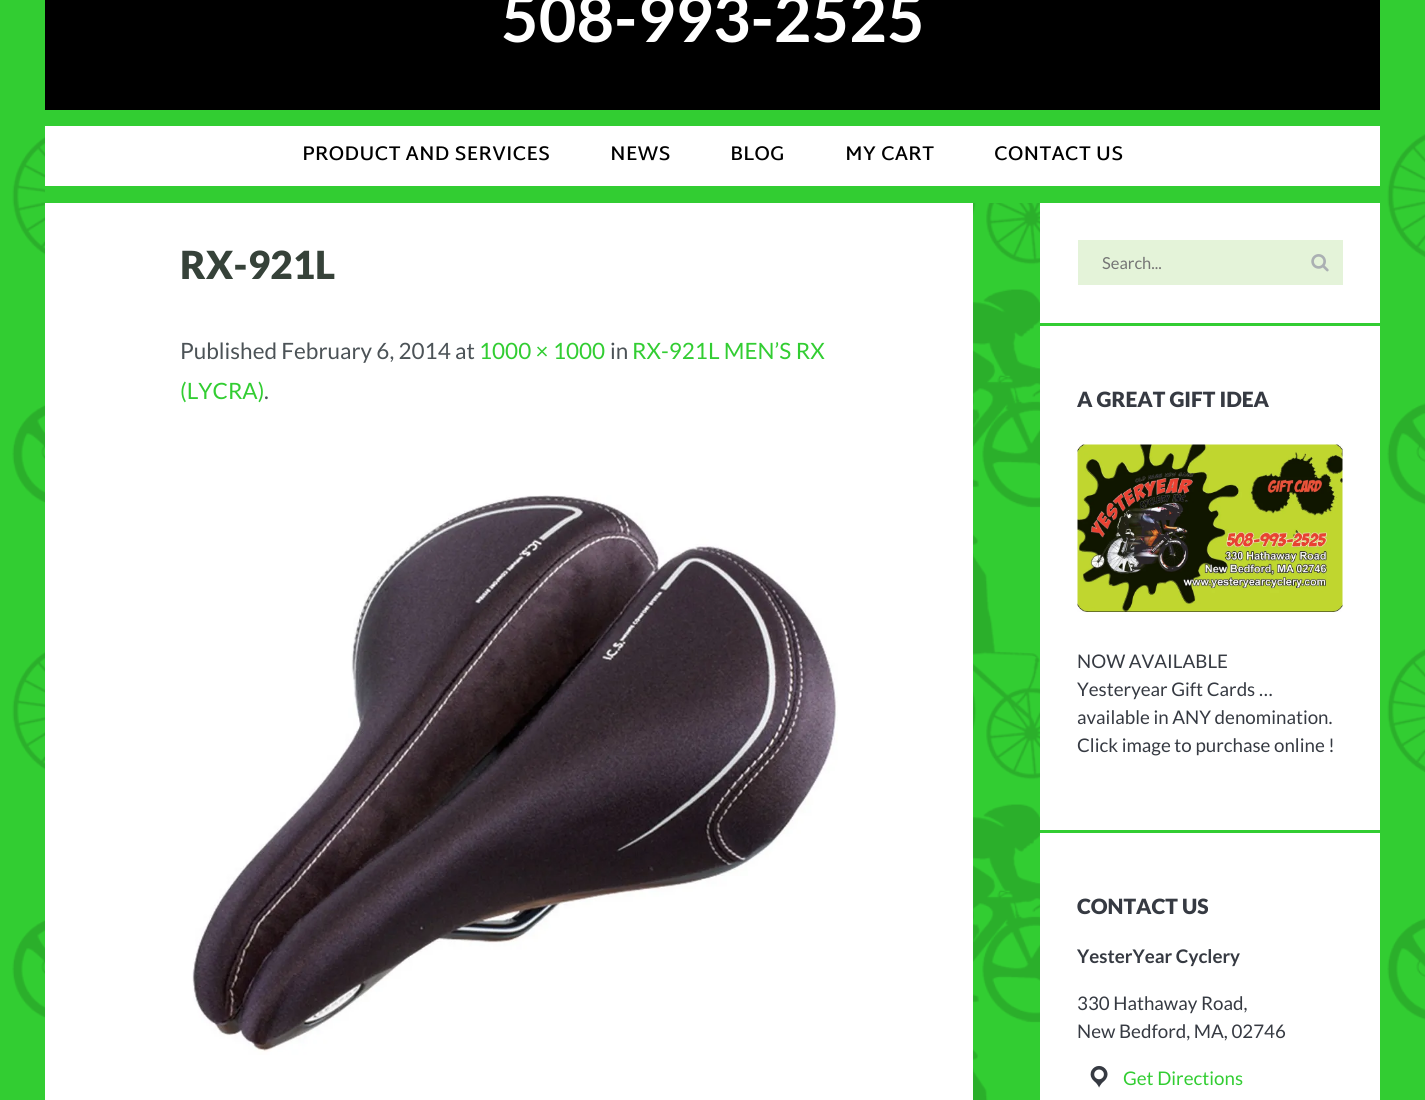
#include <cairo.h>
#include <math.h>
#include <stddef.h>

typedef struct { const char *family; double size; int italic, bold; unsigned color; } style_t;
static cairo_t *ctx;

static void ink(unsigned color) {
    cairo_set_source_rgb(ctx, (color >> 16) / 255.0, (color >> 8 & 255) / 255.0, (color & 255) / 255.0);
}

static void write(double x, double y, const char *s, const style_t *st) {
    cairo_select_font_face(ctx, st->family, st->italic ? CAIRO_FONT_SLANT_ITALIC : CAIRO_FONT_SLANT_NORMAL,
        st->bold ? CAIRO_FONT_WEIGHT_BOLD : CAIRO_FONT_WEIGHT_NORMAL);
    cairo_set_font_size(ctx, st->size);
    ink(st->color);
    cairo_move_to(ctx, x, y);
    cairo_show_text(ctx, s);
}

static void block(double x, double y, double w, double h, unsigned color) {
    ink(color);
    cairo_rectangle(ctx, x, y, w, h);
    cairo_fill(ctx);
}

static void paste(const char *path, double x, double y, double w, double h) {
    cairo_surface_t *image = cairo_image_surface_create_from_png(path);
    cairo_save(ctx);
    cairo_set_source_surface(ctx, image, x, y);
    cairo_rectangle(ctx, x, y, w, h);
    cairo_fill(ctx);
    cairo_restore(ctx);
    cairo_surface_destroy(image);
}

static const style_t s1 = {"Lato", 65, 0, 1, 0xffffff};
static const style_t s2 = {"Martel Sans SemiBold", 20, 0, 0, 0x000000};
static const style_t s3 = {"Lato Black", 38.75, 0, 0, 0x364239};
static const style_t s4 = {"Lato", 22.5, 0, 0, 0x4c5357};
static const style_t s5 = {"Lato", 22.5, 0, 0, 0x32cd32};
static const style_t s6 = {"Lato", 16.5, 0, 0, 0x757575};
static const style_t s7 = {"Lato Black", 21, 0, 0, 0x363a42};
static const style_t s8 = {"Lato", 18.75, 0, 0, 0x363a42};
static const style_t s9 = {"Lato", 18.75, 0, 1, 0x363a42};
static const style_t s10 = {"Lato", 18.75, 0, 0, 0x32cd32};

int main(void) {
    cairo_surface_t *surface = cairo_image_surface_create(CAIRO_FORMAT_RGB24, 1425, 1100);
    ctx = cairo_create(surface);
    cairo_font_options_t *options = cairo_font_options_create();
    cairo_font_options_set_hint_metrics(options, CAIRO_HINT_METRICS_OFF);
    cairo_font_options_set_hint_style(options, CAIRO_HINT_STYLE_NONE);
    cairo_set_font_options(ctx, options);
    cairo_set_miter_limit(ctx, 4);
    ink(0x32cd32);
    cairo_paint(ctx);
    paste("pic1.png", 12, 134, 1413, 966);
    block(45, 0, 1335, 110, 0x000000);
    write(501, 42, "508-993-2525", &s1);
    block(45, 126, 1335, 60, 0xffffff);
    block(45, 186, 1304, 17, 0x32cd32);
    write(302, 160, "PRODUCT AND SERVICES", &s2);
    write(610, 160, "NEWS", &s2);
    write(730, 160, "BLOG", &s2);
    write(845, 160, "MY CART", &s2);
    write(994, 160, "CONTACT US", &s2);
    block(45, 203, 928, 897, 0xffffff);
    write(180, 279, "RX-921L", &s3);
    write(180, 359, "Published February 6, 2014 at", &s4);
    write(479, 359, "1000 × 1000", &s5);
    write(610, 359, "in", &s4);
    write(632, 359, "RX-921L MEN’S RX", &s5);
    write(180, 399, "(LYCRA)", &s5);
    write(264, 399, ".", &s4);
    paste("pic2.png", 192, 495, 646, 560);
    block(1040, 203, 340, 897, 0xffffff);
    block(1040, 323, 340, 3, 0x32cd32);
    block(1078, 240, 265, 45, 0xe4f3d9);
    write(1102, 269, "Search...", &s6);
    paste("pic3.png", 1311, 254, 18, 18);
    block(1040, 830, 340, 3, 0x32cd32);
    write(1077, 407, "A GREAT GIFT IDEA", &s7);
    paste("pic4.png", 1077, 444, 266, 168);
    write(1077, 668, "NOW AVAILABLE", &s8);
    write(1077, 696, "Yesteryear Gift Cards …", &s8);
    write(1077, 724, "available in ANY denomination.", &s8);
    write(1077, 752, "Click image to purchase online !", &s8);
    write(1077, 914, "CONTACT US", &s7);
    write(1077, 963, "YesterYear Cyclery", &s9);
    write(1077, 1010, "330 Hathaway Road,", &s8);
    write(1077, 1038, "New Bedford, MA, 02746", &s8);
    paste("pic5.png", 1090, 1065, 18, 23);
    write(1123, 1085, "Get Directions", &s10);
    cairo_surface_write_to_png(surface, "screenshot.png");
    cairo_font_options_destroy(options);
    cairo_destroy(ctx);
    cairo_surface_destroy(surface);
    return 0;
}
